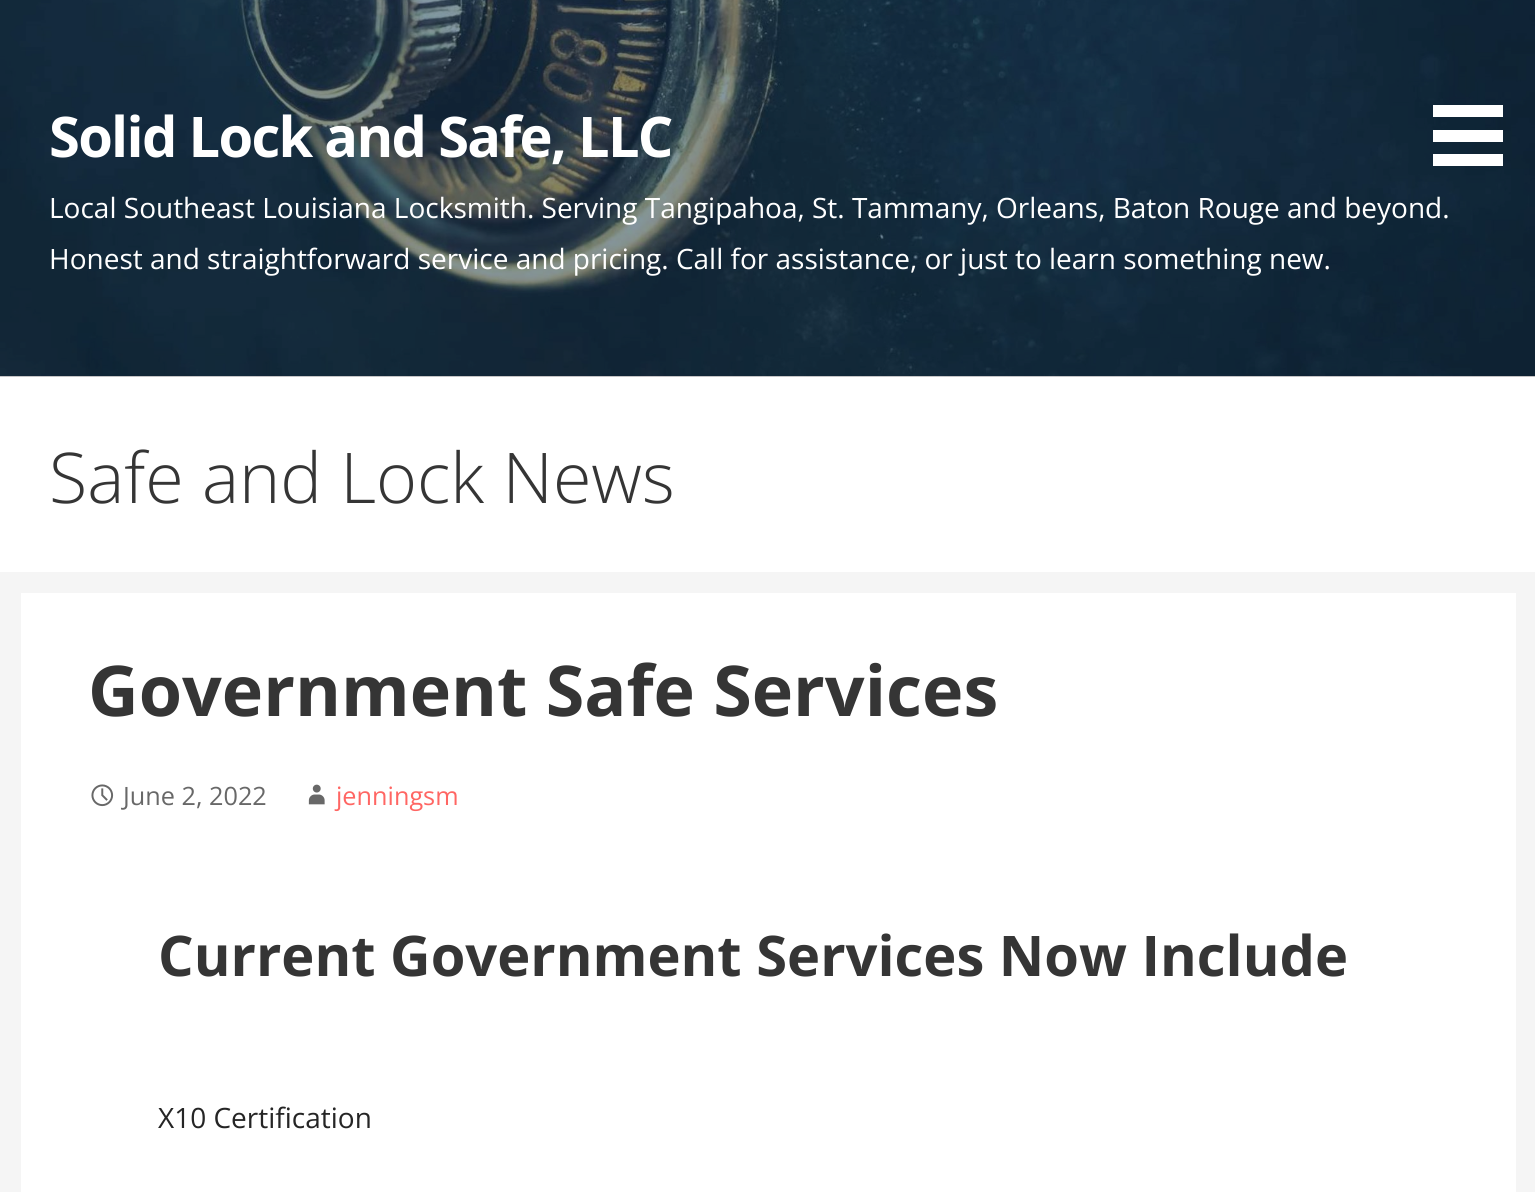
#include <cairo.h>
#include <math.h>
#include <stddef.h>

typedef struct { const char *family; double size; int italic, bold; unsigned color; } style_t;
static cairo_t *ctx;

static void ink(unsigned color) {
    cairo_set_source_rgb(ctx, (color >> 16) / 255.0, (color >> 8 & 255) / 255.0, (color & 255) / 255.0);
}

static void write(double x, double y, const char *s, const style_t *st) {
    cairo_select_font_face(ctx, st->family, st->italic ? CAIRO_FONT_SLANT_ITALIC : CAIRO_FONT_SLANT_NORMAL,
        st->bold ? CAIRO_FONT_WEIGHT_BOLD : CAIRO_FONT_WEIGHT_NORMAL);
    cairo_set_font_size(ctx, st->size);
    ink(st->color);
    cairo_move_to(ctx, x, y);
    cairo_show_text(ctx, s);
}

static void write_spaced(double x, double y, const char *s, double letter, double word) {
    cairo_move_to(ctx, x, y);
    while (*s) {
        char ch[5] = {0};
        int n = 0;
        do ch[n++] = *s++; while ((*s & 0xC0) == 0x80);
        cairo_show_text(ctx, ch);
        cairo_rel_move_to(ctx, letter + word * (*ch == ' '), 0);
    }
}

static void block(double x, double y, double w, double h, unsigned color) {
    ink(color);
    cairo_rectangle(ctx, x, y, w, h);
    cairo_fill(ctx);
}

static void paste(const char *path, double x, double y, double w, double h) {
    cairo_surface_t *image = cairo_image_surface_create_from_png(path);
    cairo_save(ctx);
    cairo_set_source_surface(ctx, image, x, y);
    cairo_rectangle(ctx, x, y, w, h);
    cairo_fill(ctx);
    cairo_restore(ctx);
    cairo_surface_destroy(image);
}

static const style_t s1 = {"Open Sans", 28, 0, 0, 0xffffff};
static const style_t s2 = {"Open Sans Light", 70, 0, 0, 0x353535};
static const style_t s3 = {"Open Sans", 70, 0, 1, 0x353535};
static const style_t s4 = {"Open Sans", 25.25, 0, 0, 0x686868};
static const style_t s5 = {"Open Sans", 25.25, 0, 0, 0xff6663};
static const style_t s6 = {"Open Sans", 56, 0, 1, 0x353535};
static const style_t s7 = {"Open Sans", 28, 0, 0, 0x252525};

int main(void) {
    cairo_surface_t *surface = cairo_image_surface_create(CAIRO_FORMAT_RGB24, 1535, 1192);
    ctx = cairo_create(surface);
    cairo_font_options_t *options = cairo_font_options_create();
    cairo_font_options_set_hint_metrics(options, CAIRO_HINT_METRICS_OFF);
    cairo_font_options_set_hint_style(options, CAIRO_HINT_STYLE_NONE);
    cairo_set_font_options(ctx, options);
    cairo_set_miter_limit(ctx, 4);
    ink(0xf5f5f5);
    cairo_paint(ctx);
    block(0, 376, 1535, 196, 0xffffff);
    paste("pic1.png", 0, 0, 1535, 377);
    cairo_select_font_face(ctx, "Open Sans", CAIRO_FONT_SLANT_NORMAL, CAIRO_FONT_WEIGHT_BOLD);
    cairo_set_font_size(ctx, 56);
    write_spaced(49, 157, "Solid Lock and Safe, LLC", -1.7, 0);
    write(49, 218, "Local Southeast Louisiana Locksmith. Serving Tangipahoa, St. Tammany, Orleans, Baton Rouge and beyond.", &s1);
    write(49, 269, "Honest and straightforward service and pricing. Call for assistance, or just to learn something new.", &s1);
    block(1433, 105, 70, 12, 0xffffff);
    block(1433, 130, 70, 12, 0xffffff);
    block(1433, 154, 70, 12, 0xffffff);
    write(49, 503, "Safe and Lock News", &s2);
    block(21, 593, 1495, 599, 0xffffff);
    write(88, 716, "Government Safe Services", &s3);
    paste("pic2.png", 91, 784, 23, 23);
    write(123, 805, "June 2, 2022", &s4);
    paste("pic3.png", 308, 784, 17, 21);
    write(336, 805, "jenningsm", &s5);
    write(158, 976, "Current Government Services Now Include", &s6);
    write(158, 1128, "X10 Certification", &s7);
    cairo_surface_write_to_png(surface, "screenshot.png");
    cairo_font_options_destroy(options);
    cairo_destroy(ctx);
    cairo_surface_destroy(surface);
    return 0;
}
